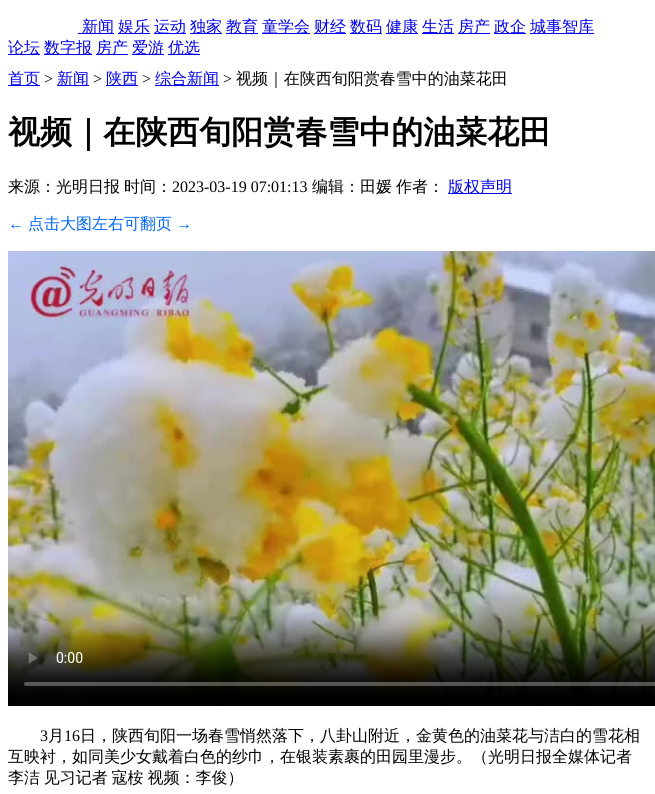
#include <cairo.h>
#include <math.h>
#include <stddef.h>

typedef struct { const char *family; double size; int italic, bold; unsigned color; } style_t;
static cairo_t *ctx;

static void ink(unsigned color) {
    cairo_set_source_rgb(ctx, (color >> 16) / 255.0, (color >> 8 & 255) / 255.0, (color & 255) / 255.0);
}

static void write(double x, double y, const char *s, const style_t *st) {
    cairo_select_font_face(ctx, st->family, st->italic ? CAIRO_FONT_SLANT_ITALIC : CAIRO_FONT_SLANT_NORMAL,
        st->bold ? CAIRO_FONT_WEIGHT_BOLD : CAIRO_FONT_WEIGHT_NORMAL);
    cairo_set_font_size(ctx, st->size);
    ink(st->color);
    cairo_move_to(ctx, x, y);
    cairo_show_text(ctx, s);
}

static void write_spaced(double x, double y, const char *s, double letter, double word) {
    cairo_move_to(ctx, x, y);
    while (*s) {
        char ch[5] = {0};
        int n = 0;
        do ch[n++] = *s++; while ((*s & 0xC0) == 0x80);
        cairo_show_text(ctx, ch);
        cairo_rel_move_to(ctx, letter + word * (*ch == ' '), 0);
    }
}

static void block(double x, double y, double w, double h, unsigned color) {
    ink(color);
    cairo_rectangle(ctx, x, y, w, h);
    cairo_fill(ctx);
}

static void paste(const char *path, double x, double y, double w, double h) {
    cairo_surface_t *image = cairo_image_surface_create_from_png(path);
    cairo_save(ctx);
    cairo_set_source_surface(ctx, image, x, y);
    cairo_rectangle(ctx, x, y, w, h);
    cairo_fill(ctx);
    cairo_restore(ctx);
    cairo_surface_destroy(image);
}

static const style_t s1 = {"WenQuanYi Zen Hei Medium", 16, 0, 0, 0x0000ee};
static const style_t s2 = {"Liberation Serif", 16, 0, 0, 0x000000};
static const style_t s3 = {"WenQuanYi Zen Hei Medium", 16, 0, 0, 0x000000};
static const style_t s4 = {"WenQuanYi Zen Hei", 32, 0, 1, 0x000000};
static const style_t s5 = {"Liberation Serif", 16, 0, 0, 0x0066ff};
static const style_t s6 = {"WenQuanYi Zen Hei Medium", 16, 0, 0, 0x0066ff};

int main(void) {
    cairo_surface_t *surface = cairo_image_surface_create(CAIRO_FORMAT_RGB24, 655, 794);
    ctx = cairo_create(surface);
    cairo_font_options_t *options = cairo_font_options_create();
    cairo_font_options_set_hint_metrics(options, CAIRO_HINT_METRICS_OFF);
    cairo_font_options_set_hint_style(options, CAIRO_HINT_STYLE_NONE);
    cairo_set_font_options(ctx, options);
    cairo_set_miter_limit(ctx, 4);
    ink(0xffffff);
    cairo_paint(ctx);
    block(78, 33, 36, 1, 0x0000ee);
    write(82, 32, "新闻", &s1);
    block(118, 33, 32, 1, 0x0000ee);
    write(118, 32, "娱乐", &s1);
    block(154, 33, 32, 1, 0x0000ee);
    write(154, 32, "运动", &s1);
    block(190, 33, 32, 1, 0x0000ee);
    write(190, 32, "独家", &s1);
    block(226, 33, 32, 1, 0x0000ee);
    write(226, 32, "教育", &s1);
    block(262, 33, 48, 1, 0x0000ee);
    write(262, 32, "童学会", &s1);
    block(314, 33, 32, 1, 0x0000ee);
    write(314, 32, "财经", &s1);
    block(350, 33, 32, 1, 0x0000ee);
    write(350, 32, "数码", &s1);
    block(386, 33, 32, 1, 0x0000ee);
    write(386, 32, "健康", &s1);
    block(422, 33, 32, 1, 0x0000ee);
    write(422, 32, "生活", &s1);
    block(458, 33, 32, 1, 0x0000ee);
    write(458, 32, "房产", &s1);
    block(494, 33, 32, 1, 0x0000ee);
    write(494, 32, "政企", &s1);
    block(530, 33, 64, 1, 0x0000ee);
    write(530, 32, "城事智库", &s1);
    block(8, 54, 32, 1, 0x0000ee);
    write(8, 53, "论坛", &s1);
    block(44, 54, 48, 1, 0x0000ee);
    write(44, 53, "数字报", &s1);
    block(96, 54, 32, 1, 0x0000ee);
    write(96, 53, "房产", &s1);
    block(132, 54, 32, 1, 0x0000ee);
    write(132, 53, "爱游", &s1);
    block(168, 54, 32, 1, 0x0000ee);
    write(168, 53, "优选", &s1);
    block(8, 85, 32, 1, 0x0000ee);
    write(8, 84, "首页", &s1);
    write(44, 84, ">", &s2);
    block(57, 85, 32, 1, 0x0000ee);
    write(57, 84, "新闻", &s1);
    write(93, 84, ">", &s2);
    block(106, 85, 32, 1, 0x0000ee);
    write(106, 84, "陕西", &s1);
    write(142, 84, ">", &s2);
    block(155, 85, 64, 1, 0x0000ee);
    write(155, 84, "综合新闻", &s1);
    write(223, 84, ">", &s2);
    write(236, 84, "视频｜在陕西旬阳赏春雪中的油菜花田", &s3);
    write(8, 143, "视频｜在陕西旬阳赏春雪中的油菜花田", &s4);
    write(8, 192, "来源：光明日报", &s3);
    write(124, 192, "时间：", &s3);
    write(172, 192, "2023-03-19 07:01:13", &s2);
    write(312, 192, "编辑：田媛", &s3);
    write(396, 192, "作者：", &s3);
    block(448, 193, 64, 1, 0x0000ee);
    write(448, 192, "版权声明", &s1);
    write(8, 229, "←", &s5);
    write(28, 229, "点击大图左右可翻页", &s6);
    write(176, 229, "→", &s5);
    paste("pic1.png", 8, 251, 647, 455);
    write(40, 741, "3", &s2);
    write(48, 741, "月", &s3);
    write(64, 741, "16", &s2);
    write(80, 741, "日，陕西旬阳一场春雪悄然落下，八卦山附近，金黄色的油菜花与洁白的雪花相", &s3);
    write(8, 762, "互映衬，如同美少女戴着白色的纱巾，在银装素裹的田园里漫步。（光明日报全媒体记者", &s3);
    write_spaced(8, 783, "李洁 见习记者 寇桉 视频：李俊）", 0, -1);
    cairo_surface_write_to_png(surface, "screenshot.png");
    cairo_font_options_destroy(options);
    cairo_destroy(ctx);
    cairo_surface_destroy(surface);
    return 0;
}
